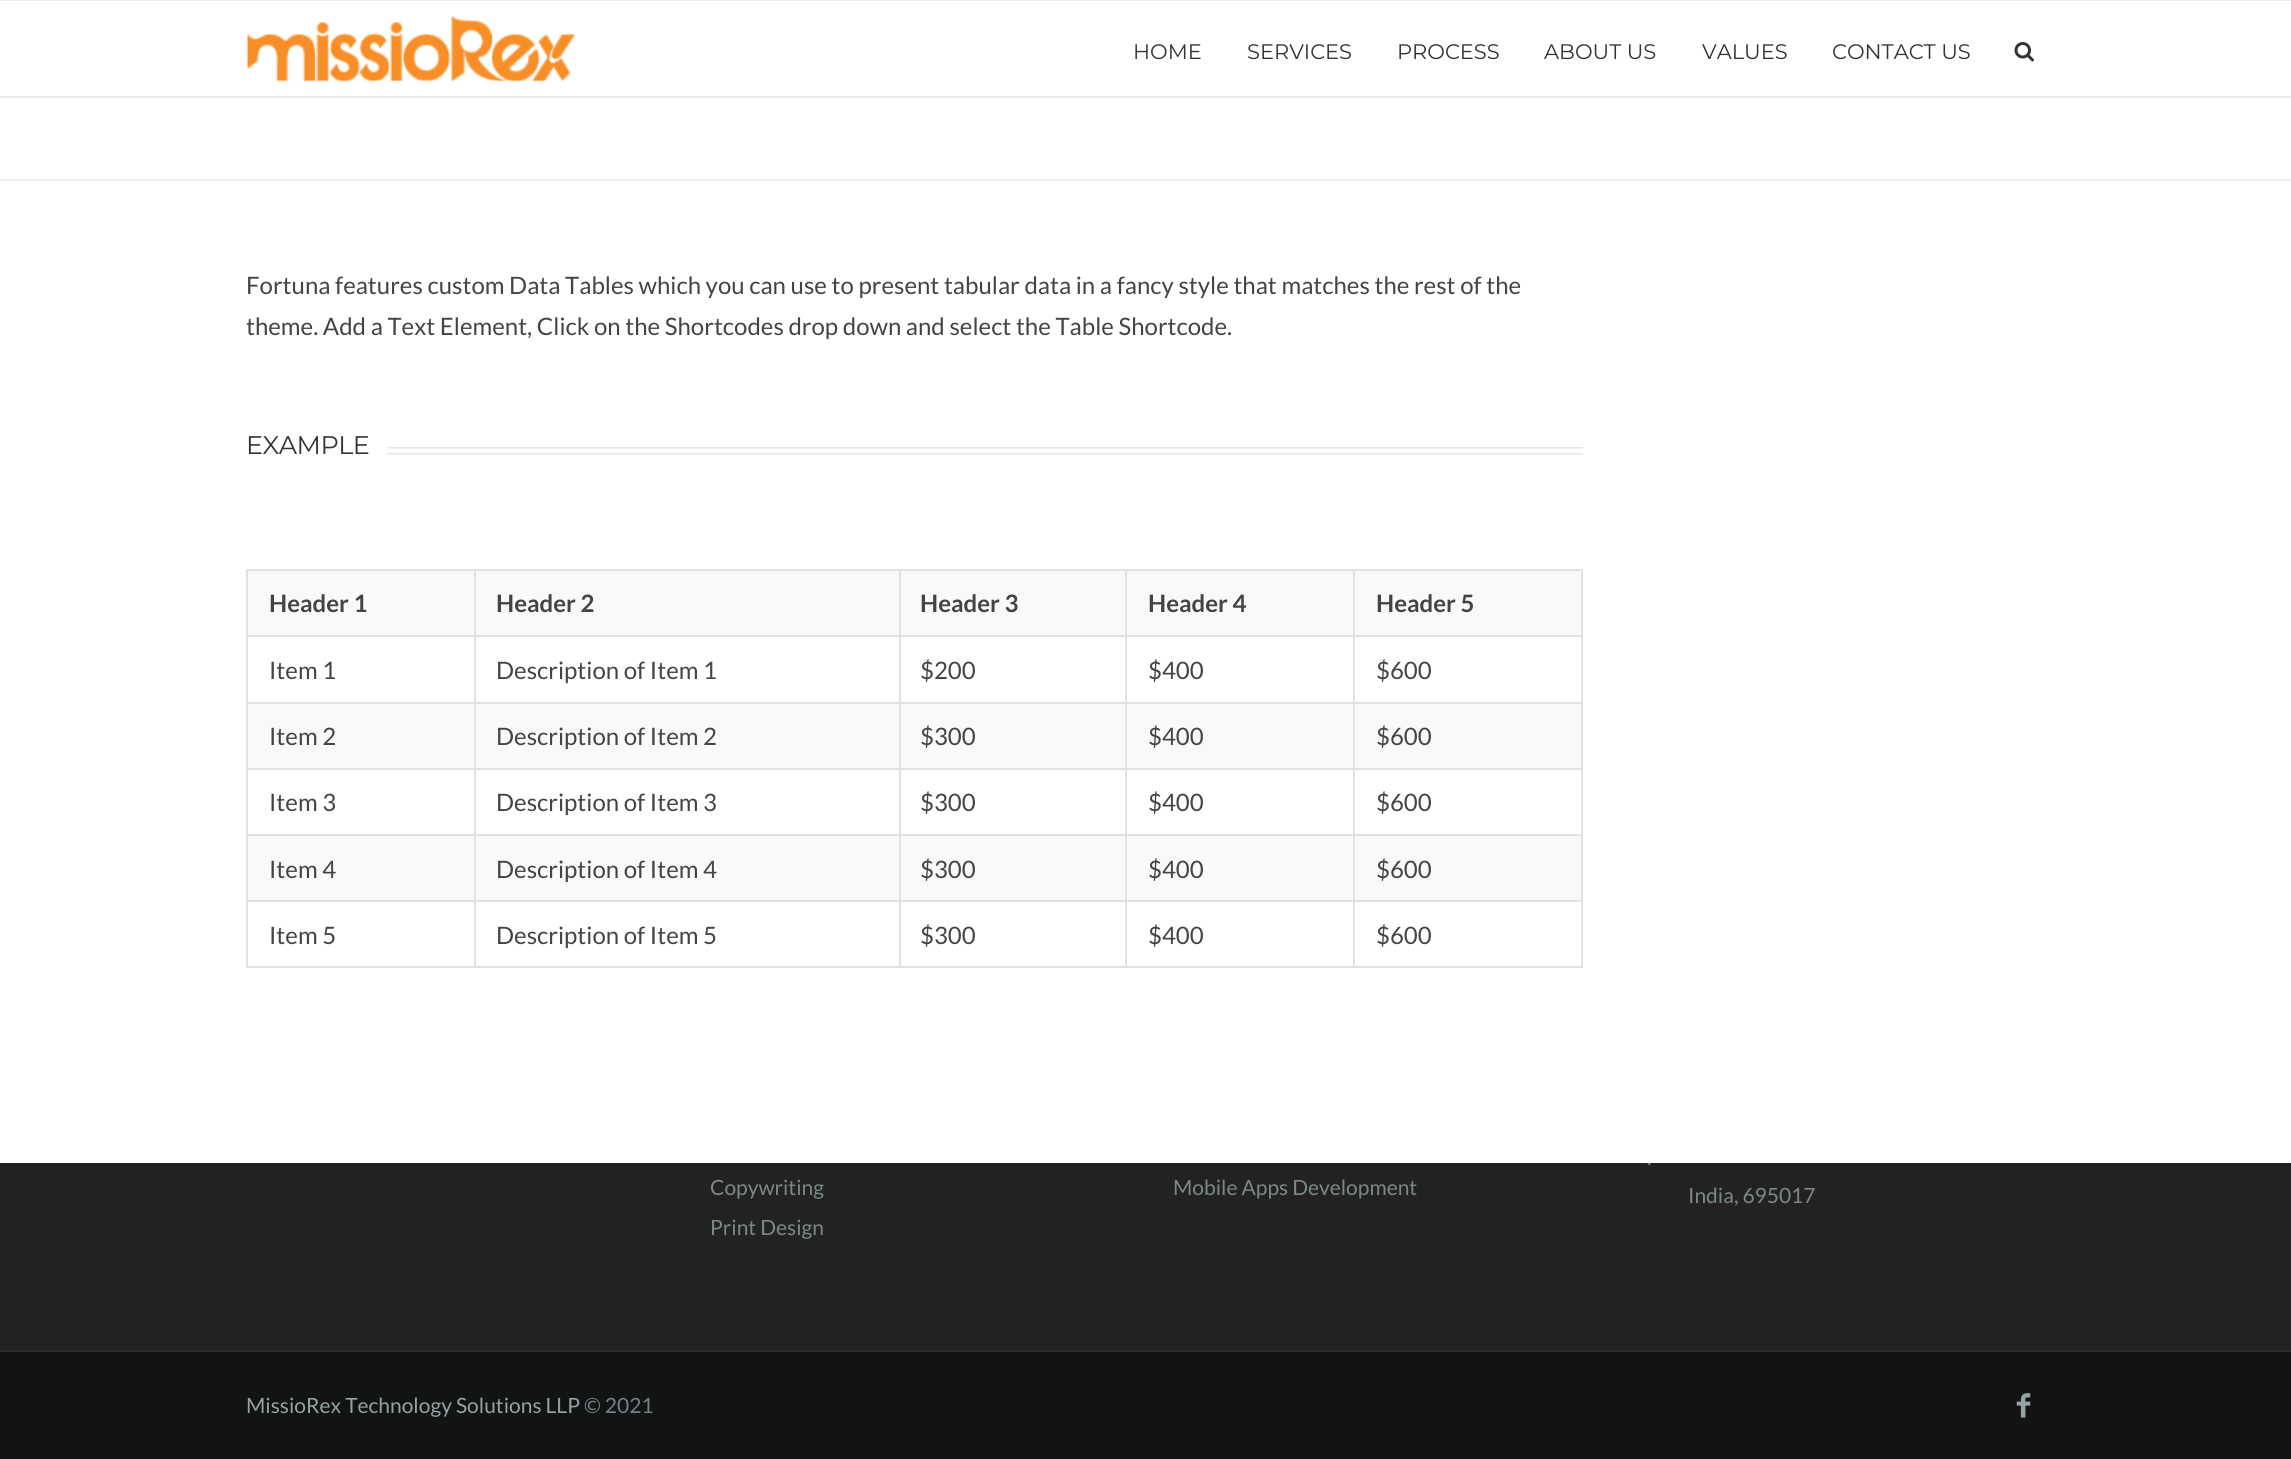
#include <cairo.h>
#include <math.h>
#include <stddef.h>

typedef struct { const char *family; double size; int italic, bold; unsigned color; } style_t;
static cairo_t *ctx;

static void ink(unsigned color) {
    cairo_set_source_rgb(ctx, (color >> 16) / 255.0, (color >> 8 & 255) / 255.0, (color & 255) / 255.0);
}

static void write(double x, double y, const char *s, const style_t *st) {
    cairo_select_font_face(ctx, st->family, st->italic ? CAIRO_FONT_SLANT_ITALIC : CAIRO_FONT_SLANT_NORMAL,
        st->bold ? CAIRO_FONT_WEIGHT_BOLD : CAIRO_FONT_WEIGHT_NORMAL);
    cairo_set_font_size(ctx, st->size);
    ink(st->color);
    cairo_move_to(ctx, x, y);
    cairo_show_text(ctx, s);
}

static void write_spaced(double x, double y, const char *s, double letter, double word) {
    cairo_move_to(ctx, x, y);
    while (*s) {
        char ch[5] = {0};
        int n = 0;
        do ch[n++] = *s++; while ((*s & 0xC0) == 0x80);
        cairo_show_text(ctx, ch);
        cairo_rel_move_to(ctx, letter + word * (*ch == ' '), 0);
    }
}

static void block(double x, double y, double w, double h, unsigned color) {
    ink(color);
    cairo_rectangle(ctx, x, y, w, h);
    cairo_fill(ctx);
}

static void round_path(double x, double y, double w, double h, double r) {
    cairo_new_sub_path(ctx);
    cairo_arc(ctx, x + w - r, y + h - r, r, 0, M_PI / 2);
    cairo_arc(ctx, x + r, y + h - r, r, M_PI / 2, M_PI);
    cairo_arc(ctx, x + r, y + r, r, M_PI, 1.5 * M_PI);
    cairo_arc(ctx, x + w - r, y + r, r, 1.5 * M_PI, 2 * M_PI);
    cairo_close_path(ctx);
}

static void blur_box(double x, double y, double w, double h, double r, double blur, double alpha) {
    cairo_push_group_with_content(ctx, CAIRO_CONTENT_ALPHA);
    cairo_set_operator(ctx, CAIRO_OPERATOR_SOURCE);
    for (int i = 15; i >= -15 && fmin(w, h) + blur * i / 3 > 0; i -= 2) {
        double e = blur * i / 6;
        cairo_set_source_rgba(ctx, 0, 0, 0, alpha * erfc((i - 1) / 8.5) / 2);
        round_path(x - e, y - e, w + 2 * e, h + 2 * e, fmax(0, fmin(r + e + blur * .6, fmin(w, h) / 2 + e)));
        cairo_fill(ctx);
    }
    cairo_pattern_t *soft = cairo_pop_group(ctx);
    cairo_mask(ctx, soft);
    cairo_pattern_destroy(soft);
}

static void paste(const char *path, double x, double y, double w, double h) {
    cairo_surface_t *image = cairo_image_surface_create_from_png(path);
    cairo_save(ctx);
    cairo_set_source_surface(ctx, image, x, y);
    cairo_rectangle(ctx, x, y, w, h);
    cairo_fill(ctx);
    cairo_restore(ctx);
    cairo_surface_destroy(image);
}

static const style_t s1 = {"Montserrat", 21, 0, 0, 0x333333};
static const style_t s2 = {"Lato", 24, 0, 0, 0x444444};
static const style_t s3 = {"Lato", 24, 0, 1, 0x444444};
static const style_t s4 = {"Lato", 21, 0, 0, 0x7b8887};
static const style_t s5 = {"Lato", 21, 0, 0, 0x94a3a3};
static const style_t s6 = {"Lato", 21, 0, 0, 0x748188};

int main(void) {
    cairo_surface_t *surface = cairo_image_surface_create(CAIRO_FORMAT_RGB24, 2291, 1459);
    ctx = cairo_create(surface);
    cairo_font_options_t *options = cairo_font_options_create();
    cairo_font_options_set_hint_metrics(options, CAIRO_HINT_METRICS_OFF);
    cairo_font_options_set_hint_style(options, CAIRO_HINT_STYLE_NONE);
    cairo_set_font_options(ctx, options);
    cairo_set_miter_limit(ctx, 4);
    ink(0xffffff);
    cairo_paint(ctx);
    cairo_save(ctx);
    cairo_rectangle(ctx, 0, 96, 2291, 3);
    cairo_clip(ctx);
    ink(0x000000);
    blur_box(0, -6, 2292, 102, 0, 2, 0.2);
    cairo_restore(ctx);
    block(0, 0, 2291, 1, 0xeeeeee);
    paste("pic1.png", 247, 16, 328, 66);
    write(1133, 59, "HOME", &s1);
    write(1247, 59, "SERVICES", &s1);
    write(1397, 59, "PROCESS", &s1);
    write(1544, 59, "ABOUT US", &s1);
    write(1702, 59, "VALUES", &s1);
    write(1832, 59, "CONTACT US", &s1);
    paste("pic2.png", 2014, 42, 20, 20);
    block(0, 179, 2291, 2, 0xeeeeee);
    write(246, 294, "Fortuna features custom Data Tables which you can use to present tabular data in a fancy style that matches the rest of the", &s2);
    write(246, 335, "theme. Add a Text Element, Click on the Shortcodes drop down and select the Table Shortcode.", &s2);
    paste("pic3.png", 387, 447, 1196, 8);
    cairo_select_font_face(ctx, "Montserrat", CAIRO_FONT_SLANT_NORMAL, CAIRO_FONT_WEIGHT_NORMAL);
    cairo_set_font_size(ctx, 25.5);
    ink(0x333333);
    write_spaced(246, 454, "EXAMPLE", -0.5, 0);
    block(248, 571, 226, 64, 0xf9f9f9);
    block(1353, 569, 230, 2, 0xe2e2e2);
    block(1353, 635, 230, 2, 0xe2e2e2);
    block(1353, 702, 230, 2, 0xe2e2e2);
    block(1353, 768, 230, 2, 0xe2e2e2);
    block(1353, 834, 230, 2, 0xe2e2e2);
    block(1353, 900, 230, 2, 0xe2e2e2);
    block(1581, 900, 2, 68, 0xe2e2e2);
    block(1353, 966, 230, 2, 0xe2e2e2);
    block(1353, 900, 2, 68, 0xe2e2e2);
    block(1125, 900, 230, 2, 0xe2e2e2);
    block(1353, 834, 2, 68, 0xe2e2e2);
    block(1125, 834, 230, 2, 0xe2e2e2);
    block(1353, 768, 2, 68, 0xe2e2e2);
    block(1125, 768, 230, 2, 0xe2e2e2);
    block(1353, 702, 2, 68, 0xe2e2e2);
    block(1125, 702, 230, 2, 0xe2e2e2);
    block(1353, 635, 2, 69, 0xe2e2e2);
    block(1125, 635, 230, 2, 0xe2e2e2);
    block(1353, 569, 2, 67, 0xe2e2e2);
    block(1125, 569, 230, 2, 0xe2e2e2);
    block(1125, 966, 230, 2, 0xe2e2e2);
    block(1125, 900, 2, 68, 0xe2e2e2);
    block(899, 900, 228, 2, 0xe2e2e2);
    block(1125, 834, 2, 68, 0xe2e2e2);
    block(899, 834, 228, 2, 0xe2e2e2);
    block(1125, 768, 2, 68, 0xe2e2e2);
    block(899, 768, 228, 2, 0xe2e2e2);
    block(1125, 702, 2, 68, 0xe2e2e2);
    block(899, 702, 228, 2, 0xe2e2e2);
    block(1125, 635, 2, 69, 0xe2e2e2);
    block(899, 635, 228, 2, 0xe2e2e2);
    block(1125, 569, 2, 67, 0xe2e2e2);
    block(899, 569, 228, 2, 0xe2e2e2);
    block(899, 966, 228, 2, 0xe2e2e2);
    block(899, 900, 2, 68, 0xe2e2e2);
    block(474, 900, 426, 2, 0xe2e2e2);
    block(899, 834, 2, 68, 0xe2e2e2);
    block(474, 834, 426, 2, 0xe2e2e2);
    block(899, 768, 2, 68, 0xe2e2e2);
    block(474, 768, 426, 2, 0xe2e2e2);
    block(899, 702, 2, 68, 0xe2e2e2);
    block(474, 702, 426, 2, 0xe2e2e2);
    block(899, 635, 2, 69, 0xe2e2e2);
    block(474, 635, 426, 2, 0xe2e2e2);
    block(899, 569, 2, 67, 0xe2e2e2);
    block(474, 569, 426, 2, 0xe2e2e2);
    block(474, 966, 426, 2, 0xe2e2e2);
    block(474, 900, 2, 68, 0xe2e2e2);
    block(246, 900, 230, 2, 0xe2e2e2);
    block(474, 834, 2, 68, 0xe2e2e2);
    block(246, 834, 230, 2, 0xe2e2e2);
    block(474, 768, 2, 68, 0xe2e2e2);
    block(246, 768, 230, 2, 0xe2e2e2);
    block(474, 702, 2, 68, 0xe2e2e2);
    block(246, 702, 230, 2, 0xe2e2e2);
    block(474, 635, 2, 69, 0xe2e2e2);
    block(246, 635, 230, 2, 0xe2e2e2);
    block(474, 569, 2, 67, 0xe2e2e2);
    block(246, 569, 230, 2, 0xe2e2e2);
    block(246, 966, 230, 2, 0xe2e2e2);
    block(246, 900, 2, 68, 0xe2e2e2);
    block(246, 834, 2, 68, 0xe2e2e2);
    block(246, 768, 2, 68, 0xe2e2e2);
    block(246, 702, 2, 68, 0xe2e2e2);
    block(246, 635, 2, 69, 0xe2e2e2);
    block(246, 569, 2, 67, 0xe2e2e2);
    write(269, 612, "Header 1", &s3);
    block(476, 571, 423, 64, 0xf9f9f9);
    write(496, 612, "Header 2", &s3);
    block(901, 571, 224, 64, 0xf9f9f9);
    write(920, 612, "Header 3", &s3);
    block(1127, 571, 226, 64, 0xf9f9f9);
    write(1148, 612, "Header 4", &s3);
    block(1355, 571, 226, 64, 0xf9f9f9);
    block(1581, 834, 2, 68, 0xe2e2e2);
    block(1581, 768, 2, 68, 0xe2e2e2);
    block(1581, 702, 2, 68, 0xe2e2e2);
    block(1581, 635, 2, 69, 0xe2e2e2);
    block(1581, 569, 2, 67, 0xe2e2e2);
    write(1376, 612, "Header 5", &s3);
    write(269, 679, "Item 1", &s2);
    write(496, 679, "Description of Item 1", &s2);
    write(920, 679, "$200", &s2);
    write(1148, 679, "$400", &s2);
    write(1376, 679, "$600", &s2);
    block(248, 704, 226, 64, 0xf9f9f9);
    write(269, 745, "Item 2", &s2);
    block(476, 704, 423, 64, 0xf9f9f9);
    write(496, 745, "Description of Item 2", &s2);
    block(901, 704, 224, 64, 0xf9f9f9);
    write(920, 745, "$300", &s2);
    block(1127, 704, 226, 64, 0xf9f9f9);
    write(1148, 745, "$400", &s2);
    block(1355, 704, 226, 64, 0xf9f9f9);
    write(1376, 745, "$600", &s2);
    write(269, 811, "Item 3", &s2);
    write(496, 811, "Description of Item 3", &s2);
    write(920, 811, "$300", &s2);
    write(1148, 811, "$400", &s2);
    write(1376, 811, "$600", &s2);
    block(248, 836, 226, 64, 0xf9f9f9);
    write(269, 878, "Item 4", &s2);
    block(476, 836, 423, 64, 0xf9f9f9);
    write(496, 878, "Description of Item 4", &s2);
    block(901, 836, 224, 64, 0xf9f9f9);
    write(920, 878, "$300", &s2);
    block(1127, 836, 226, 64, 0xf9f9f9);
    write(1148, 878, "$400", &s2);
    block(1355, 836, 226, 64, 0xf9f9f9);
    write(1376, 878, "$600", &s2);
    write(269, 944, "Item 5", &s2);
    write(496, 944, "Description of Item 5", &s2);
    write(920, 944, "$300", &s2);
    write(1148, 944, "$400", &s2);
    write(1376, 944, "$600", &s2);
    block(0, 1163, 2291, 187, 0x222222);
    write(710, 1195, "Copywriting", &s4);
    write(710, 1235, "Print Design", &s4);
    write(1173, 1195, "Mobile Apps Development", &s4);
    paste("pic4.png", 1647, 1163, 4, 3);
    write(1688, 1203, "India, 695017", &s4);
    block(0, 1352, 2291, 107, 0x121313);
    block(0, 1350, 2291, 2, 0x2a2a2a);
    write(246, 1413, "MissioRex Technology Solutions LLP", &s5);
    write(584, 1413, "© 2021", &s6);
    paste("pic5.png", 2016, 1393, 15, 25);
    cairo_surface_write_to_png(surface, "screenshot.png");
    cairo_font_options_destroy(options);
    cairo_destroy(ctx);
    cairo_surface_destroy(surface);
    return 0;
}
